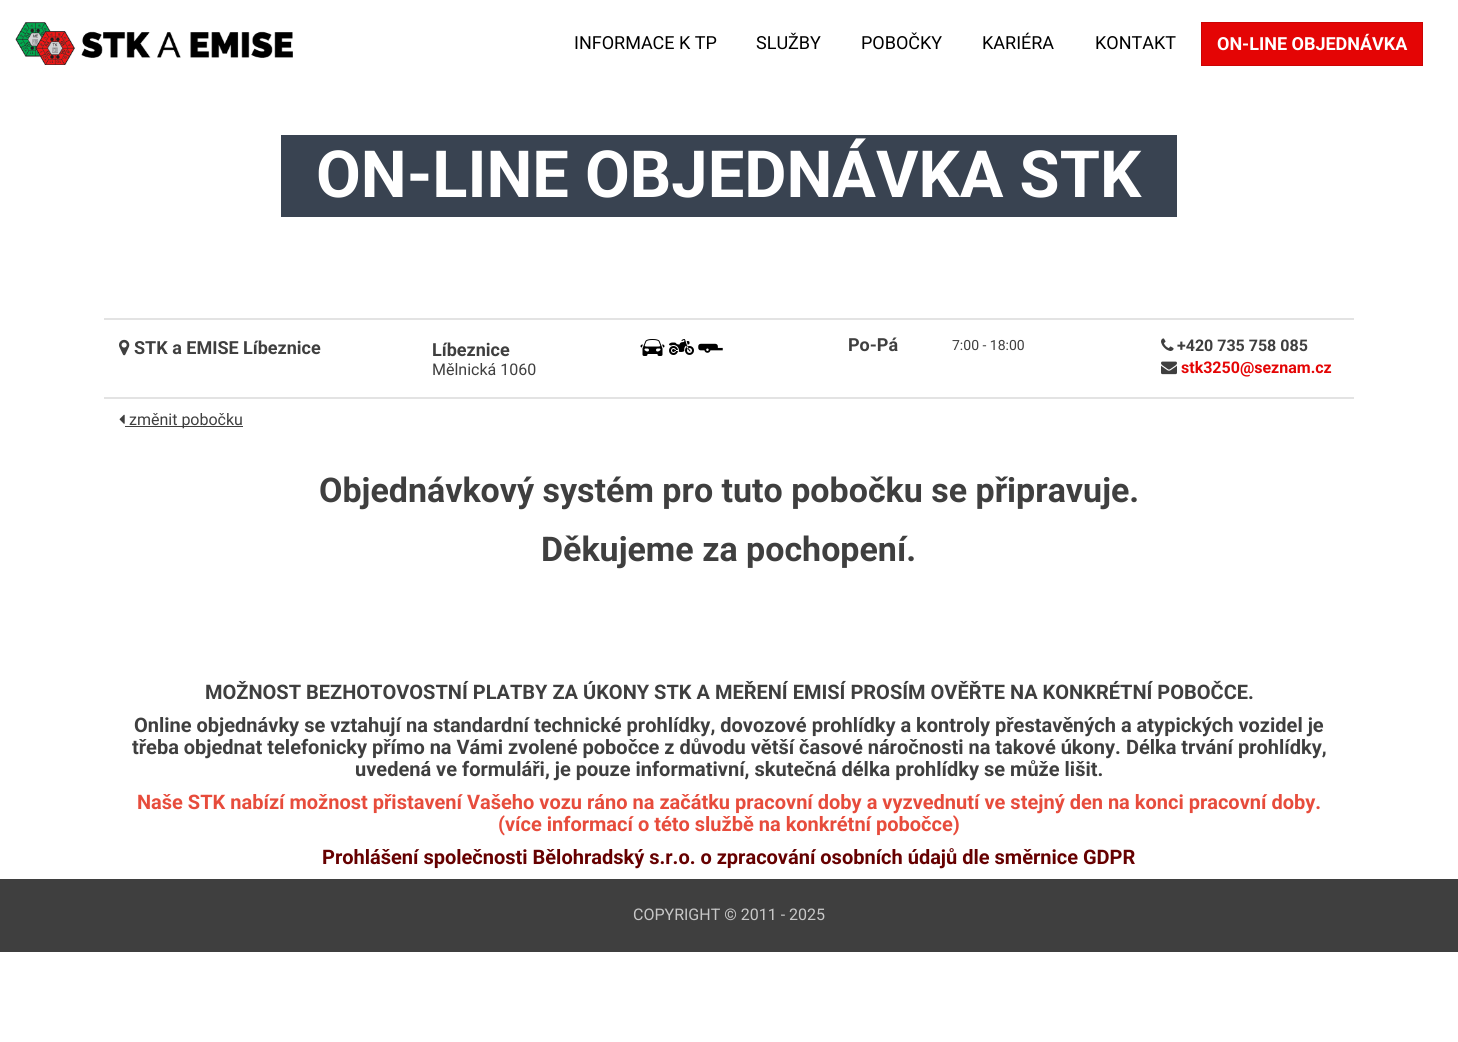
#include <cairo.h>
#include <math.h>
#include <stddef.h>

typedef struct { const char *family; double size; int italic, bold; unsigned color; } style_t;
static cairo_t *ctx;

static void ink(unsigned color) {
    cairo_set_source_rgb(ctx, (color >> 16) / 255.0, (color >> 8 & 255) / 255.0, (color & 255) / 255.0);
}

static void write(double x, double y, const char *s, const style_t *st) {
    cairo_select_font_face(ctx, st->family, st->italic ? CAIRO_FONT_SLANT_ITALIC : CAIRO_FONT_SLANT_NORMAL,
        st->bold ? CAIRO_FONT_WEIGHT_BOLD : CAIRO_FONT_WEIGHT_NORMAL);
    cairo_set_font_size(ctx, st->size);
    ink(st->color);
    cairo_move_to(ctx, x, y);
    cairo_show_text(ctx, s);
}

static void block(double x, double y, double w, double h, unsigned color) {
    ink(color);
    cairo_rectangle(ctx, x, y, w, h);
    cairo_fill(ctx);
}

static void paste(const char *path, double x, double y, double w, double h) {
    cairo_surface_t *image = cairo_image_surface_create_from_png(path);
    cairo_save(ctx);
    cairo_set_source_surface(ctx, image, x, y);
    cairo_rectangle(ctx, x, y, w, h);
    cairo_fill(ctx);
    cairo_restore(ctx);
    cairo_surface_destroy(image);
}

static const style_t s1 = {"Roboto", 18, 0, 0, 0x000000};
static const style_t s2 = {"Roboto", 18, 0, 1, 0xffffff};
static const style_t s3 = {"Roboto", 65, 0, 1, 0xffffff};
static const style_t s4 = {"Roboto", 18, 0, 1, 0x3f3f3f};
static const style_t s5 = {"Roboto", 16, 0, 0, 0x3f3f3f};
static const style_t s6 = {"Roboto", 14, 0, 0, 0x3f3f3f};
static const style_t s7 = {"Roboto", 16, 0, 1, 0x3f3f3f};
static const style_t s8 = {"Roboto", 16, 0, 1, 0xe40505};
static const style_t s9 = {"Roboto", 34, 0, 1, 0x3f3f3f};
static const style_t s10 = {"Roboto", 20, 0, 1, 0x3f3f3f};
static const style_t s11 = {"Roboto", 20, 0, 1, 0xe74c3c};
static const style_t s12 = {"Roboto", 20, 0, 1, 0x660000};
static const style_t s13 = {"Roboto", 16, 0, 0, 0xc7c7c7};

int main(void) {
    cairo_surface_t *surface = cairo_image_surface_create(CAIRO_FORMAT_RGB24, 1458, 1042);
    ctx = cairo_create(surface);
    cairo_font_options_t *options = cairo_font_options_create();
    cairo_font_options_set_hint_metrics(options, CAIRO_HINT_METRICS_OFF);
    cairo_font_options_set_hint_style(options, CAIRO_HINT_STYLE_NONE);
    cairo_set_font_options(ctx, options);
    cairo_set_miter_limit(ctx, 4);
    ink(0xffffff);
    cairo_paint(ctx);
    paste("pic1.png", 15, 22, 278, 43);
    write(574, 49, "INFORMACE K TP", &s1);
    write(756, 49, "SLUŽBY", &s1);
    write(861, 49, "POBOČKY", &s1);
    write(982, 49, "KARIÉRA", &s1);
    write(1095, 49, "KONTAKT", &s1);
    ink(0xe40505);
    cairo_rectangle(ctx, 1201.5, 22.5, 221, 43);
    cairo_fill_preserve(ctx);
    ink(0xcb0404);
    cairo_set_line_width(ctx, 1);
    cairo_stroke(ctx);
    write(1217, 50, "ON-LINE OBJEDNÁVKA", &s2);
    block(281, 135, 896, 82, 0x394351);
    write(316, 197, "ON-LINE OBJEDNÁVKA STK", &s3);
    block(104, 318, 1250, 2, 0xe3e3e3);
    block(104, 397, 1250, 2, 0xe3e3e3);
    paste("pic2.png", 119, 339, 11, 17);
    write(134, 354, "STK a EMISE Líbeznice", &s4);
    write(432, 356, "Líbeznice", &s4);
    write(432, 375, "Mělnická 1060", &s5);
    paste("pic3.png", 640, 339, 25, 17);
    paste("pic4.png", 669, 339, 25, 16);
    paste("pic5.png", 698, 343, 25, 10);
    write(848, 351, "Po-Pá", &s4);
    write(952, 350, "7:00 - 18:00", &s6);
    paste("pic6.png", 1161, 338, 13, 13);
    write(1177, 351, "+420 735 758 085", &s7);
    paste("pic7.png", 1161, 361, 16, 14);
    write(1181, 373, "stk3250@seznam.cz", &s8);
    paste("pic8.png", 119, 414, 6, 10);
    block(125, 426, 118, 1, 0x3f3f3f);
    write(129, 425, "změnit pobočku", &s5);
    write(319, 502, "Objednávkový systém pro tuto pobočku se připravuje.", &s9);
    write(541, 561, "Děkujeme za pochopení.", &s9);
    write(205, 699, "MOŽNOST BEZHOTOVOSTNÍ PLATBY ZA ÚKONY STK A MEŘENÍ EMISÍ PROSÍM OVĚŘTE NA KONKRÉTNÍ POBOČCE.", &s10);
    write(134, 732, "Online objednávky se vztahují na standardní technické prohlídky, dovozové prohlídky a kontroly přestavěných a atypických vozidel je", &s10);
    write(132, 754, "třeba objednat telefonicky přímo na Vámi zvolené pobočce z důvodu větší časové náročnosti na takové úkony. Délka trvání prohlídky,", &s10);
    write(355, 776, "uvedená ve formuláři, je pouze informativní, skutečná délka prohlídky se může lišit.", &s10);
    write(137, 809, "Naše STK nabízí možnost přistavení Vašeho vozu ráno na začátku pracovní doby a vyzvednutí ve stejný den na konci pracovní doby.", &s11);
    write(498, 831, "(více informací o této službě na konkrétní pobočce)", &s11);
    write(322, 864, "Prohlášení společnosti Bělohradský s.r.o. o zpracování osobních údajů dle směrnice GDPR", &s12);
    block(0, 879, 1458, 73, 0x3f3f3f);
    write(633, 920, "COPYRIGHT © 2011 - 2025", &s13);
    cairo_surface_write_to_png(surface, "screenshot.png");
    cairo_font_options_destroy(options);
    cairo_destroy(ctx);
    cairo_surface_destroy(surface);
    return 0;
}
